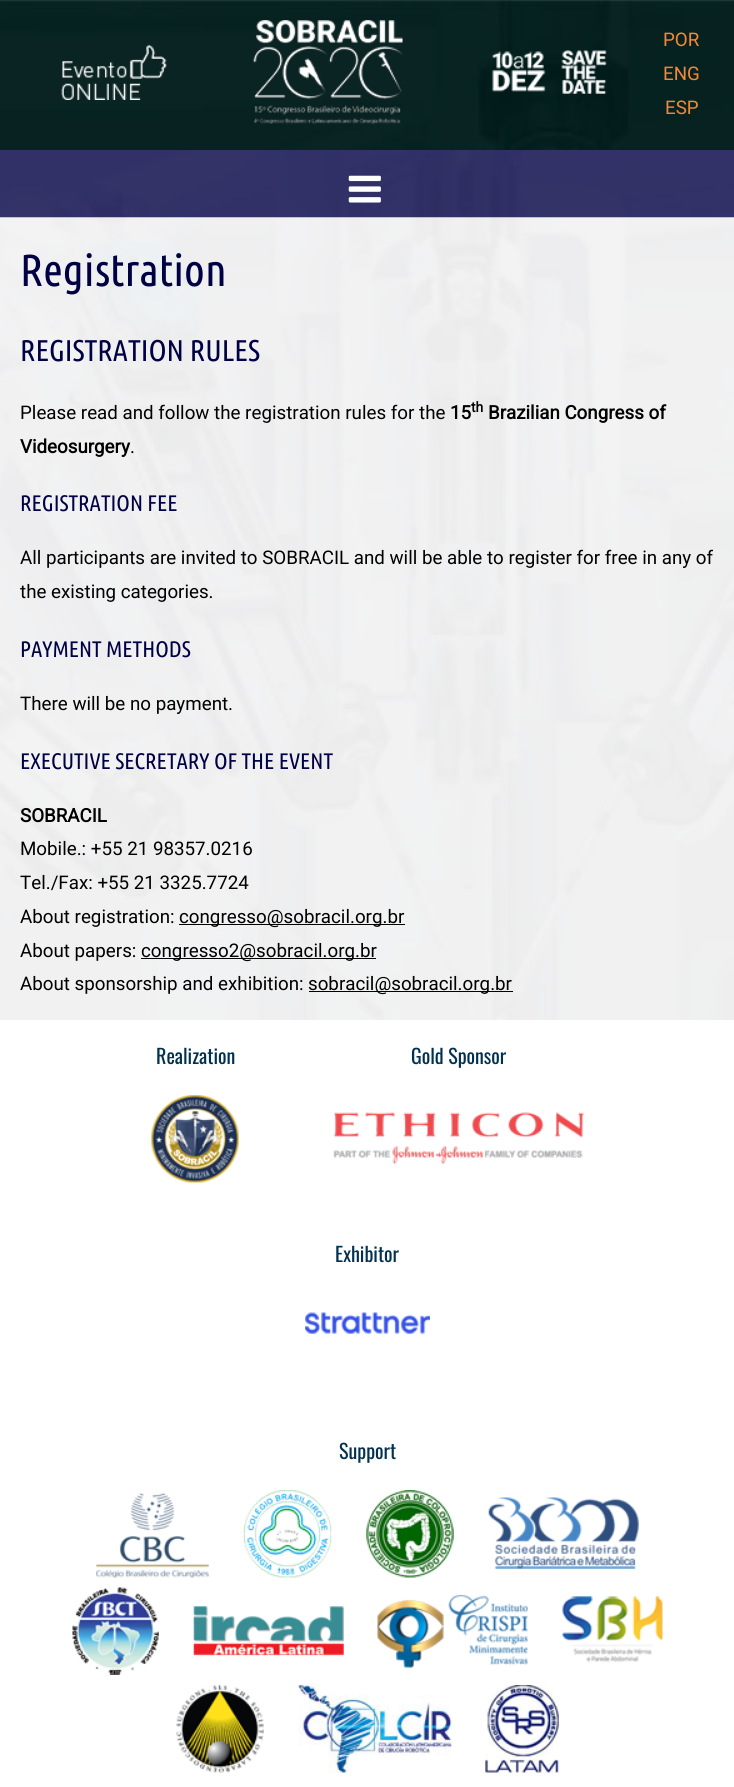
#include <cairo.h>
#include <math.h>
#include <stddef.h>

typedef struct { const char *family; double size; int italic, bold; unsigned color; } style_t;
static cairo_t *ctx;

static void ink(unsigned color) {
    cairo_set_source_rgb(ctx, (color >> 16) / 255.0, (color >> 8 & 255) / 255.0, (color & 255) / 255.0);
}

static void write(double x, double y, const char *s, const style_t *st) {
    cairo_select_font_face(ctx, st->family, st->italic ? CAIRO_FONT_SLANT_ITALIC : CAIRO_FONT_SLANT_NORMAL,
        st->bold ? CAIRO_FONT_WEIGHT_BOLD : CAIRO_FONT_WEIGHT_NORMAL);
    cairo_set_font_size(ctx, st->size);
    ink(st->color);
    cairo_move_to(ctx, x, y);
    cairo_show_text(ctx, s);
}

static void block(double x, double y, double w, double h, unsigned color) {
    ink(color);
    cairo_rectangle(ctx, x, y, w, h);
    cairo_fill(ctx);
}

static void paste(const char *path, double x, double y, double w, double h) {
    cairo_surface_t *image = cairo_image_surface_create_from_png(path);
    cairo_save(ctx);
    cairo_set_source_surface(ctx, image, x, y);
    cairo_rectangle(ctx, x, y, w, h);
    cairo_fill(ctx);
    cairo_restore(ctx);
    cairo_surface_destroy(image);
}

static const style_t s1 = {"Roboto", 18.75, 0, 0, 0xf68834};
static const style_t s2 = {"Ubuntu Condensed", 45, 0, 0, 0x000144};
static const style_t s3 = {"Ubuntu Condensed", 30, 0, 0, 0x000144};
static const style_t s4 = {"Roboto", 18.75, 0, 0, 0x000000};
static const style_t s5 = {"Roboto", 18.75, 0, 1, 0x000000};
static const style_t s6 = {"Roboto", 14, 0, 1, 0x000000};
static const style_t s7 = {"Ubuntu Condensed", 22.5, 0, 0, 0x000144};
static const style_t s8 = {"Oswald", 20, 0, 0, 0x00314f};

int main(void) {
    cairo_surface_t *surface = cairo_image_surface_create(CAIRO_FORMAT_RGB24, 734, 1787);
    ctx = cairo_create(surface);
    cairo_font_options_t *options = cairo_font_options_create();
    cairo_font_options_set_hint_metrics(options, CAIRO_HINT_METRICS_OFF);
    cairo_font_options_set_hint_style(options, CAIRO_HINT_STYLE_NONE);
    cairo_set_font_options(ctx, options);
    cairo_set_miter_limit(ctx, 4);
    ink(0xffffff);
    cairo_paint(ctx);
    paste("pic1.png", 0, 150, 734, 870);
    cairo_set_source_rgba(ctx, 0, 0.004, 0.263, 0.8);
    cairo_rectangle(ctx, 0, 150, 734, 68);
    cairo_fill(ctx);
    paste("pic2.png", 0, 0, 734, 150);
    paste("pic3.png", 61, 45, 106, 55);
    paste("pic4.png", 253, 20, 150, 104);
    paste("pic5.png", 492, 50, 115, 44);
    write(663, 46, "POR", &s1);
    write(663, 80, "ENG", &s1);
    write(665, 114, "ESP", &s1);
    paste("pic6.png", 348, 175, 33, 28);
    cairo_set_source_rgba(ctx, 0.933, 0.933, 0.933, 0.75);
    cairo_rectangle(ctx, 0, 217, 734, 803);
    cairo_fill(ctx);
    write(20, 286, "Registration", &s2);
    write(20, 361, "REGISTRATION RULES", &s3);
    write(20, 419, "Please read and follow the registration rules for the", &s4);
    write(450, 419, "15", &s5);
    write(471, 412, "th", &s6);
    write(488, 419, "Brazilian Congress of", &s5);
    write(20, 453, "Videosurgery", &s5);
    write(130, 453, ".", &s4);
    write(20, 511, "REGISTRATION FEE", &s7);
    write(20, 564, "All participants are invited to SOBRACIL and will be able to register for free in any of", &s4);
    write(20, 598, "the existing categories.", &s4);
    write(20, 657, "PAYMENT METHODS", &s7);
    write(20, 710, "There will be no payment.", &s4);
    write(20, 769, "EXECUTIVE SECRETARY OF THE EVENT", &s7);
    write(20, 822, "SOBRACIL", &s5);
    write(20, 855, "Mobile.: +55 21 98357.0216", &s4);
    write(20, 889, "Tel./Fax: +55 21 3325.7724", &s4);
    write(20, 923, "About registration:", &s4);
    block(179, 924, 226, 1, 0x000000);
    write(179, 923, "congresso@sobracil.org.br", &s4);
    write(20, 957, "About papers:", &s4);
    block(141, 958, 235, 1, 0x000000);
    write(141, 957, "congresso2@sobracil.org.br", &s4);
    write(20, 990, "About sponsorship and exhibition:", &s4);
    block(309, 991, 204, 1, 0x000000);
    write(308, 990, "sobracil@sobracil.org.br", &s4);
    write(156, 1064, "Realization", &s8);
    paste("pic7.png", 151, 1095, 88, 88);
    write(411, 1064, "Gold Sponsor", &s8);
    paste("pic8.png", 333, 1112, 251, 52);
    write(335, 1262, "Exhibitor", &s8);
    paste("pic9.png", 305, 1312, 125, 22);
    write(339, 1459, "Support", &s8);
    paste("pic10.png", 96, 1492, 113, 86);
    paste("pic11.png", 243, 1490, 89, 88);
    paste("pic12.png", 366, 1490, 88, 88);
    paste("pic13.png", 488, 1497, 151, 72);
    paste("pic14.png", 72, 1587, 87, 88);
    paste("pic15.png", 193, 1606, 151, 50);
    paste("pic16.png", 377, 1594, 151, 74);
    paste("pic17.png", 562, 1596, 101, 67);
    paste("pic18.png", 176, 1685, 88, 88);
    paste("pic19.png", 298, 1685, 154, 88);
    paste("pic20.png", 485, 1685, 74, 88);
    cairo_surface_write_to_png(surface, "screenshot.png");
    cairo_font_options_destroy(options);
    cairo_destroy(ctx);
    cairo_surface_destroy(surface);
    return 0;
}
